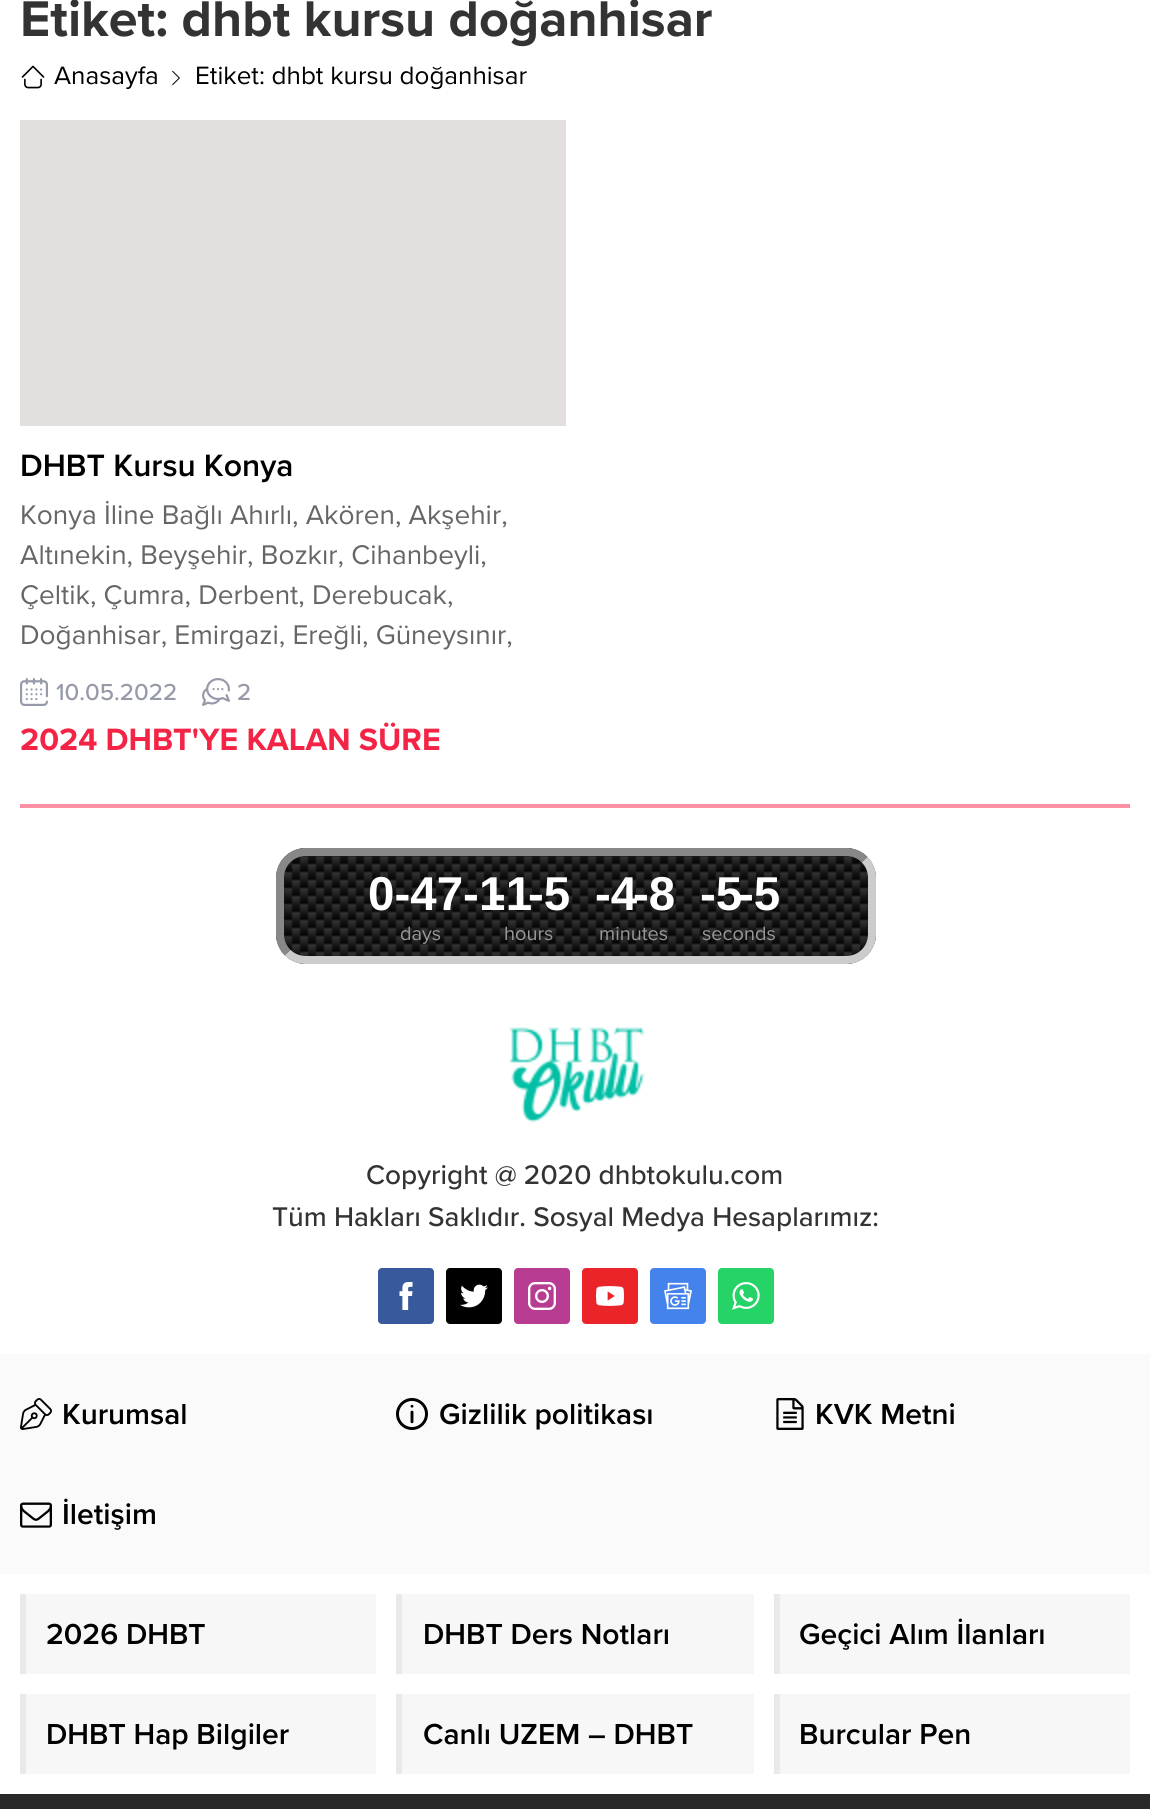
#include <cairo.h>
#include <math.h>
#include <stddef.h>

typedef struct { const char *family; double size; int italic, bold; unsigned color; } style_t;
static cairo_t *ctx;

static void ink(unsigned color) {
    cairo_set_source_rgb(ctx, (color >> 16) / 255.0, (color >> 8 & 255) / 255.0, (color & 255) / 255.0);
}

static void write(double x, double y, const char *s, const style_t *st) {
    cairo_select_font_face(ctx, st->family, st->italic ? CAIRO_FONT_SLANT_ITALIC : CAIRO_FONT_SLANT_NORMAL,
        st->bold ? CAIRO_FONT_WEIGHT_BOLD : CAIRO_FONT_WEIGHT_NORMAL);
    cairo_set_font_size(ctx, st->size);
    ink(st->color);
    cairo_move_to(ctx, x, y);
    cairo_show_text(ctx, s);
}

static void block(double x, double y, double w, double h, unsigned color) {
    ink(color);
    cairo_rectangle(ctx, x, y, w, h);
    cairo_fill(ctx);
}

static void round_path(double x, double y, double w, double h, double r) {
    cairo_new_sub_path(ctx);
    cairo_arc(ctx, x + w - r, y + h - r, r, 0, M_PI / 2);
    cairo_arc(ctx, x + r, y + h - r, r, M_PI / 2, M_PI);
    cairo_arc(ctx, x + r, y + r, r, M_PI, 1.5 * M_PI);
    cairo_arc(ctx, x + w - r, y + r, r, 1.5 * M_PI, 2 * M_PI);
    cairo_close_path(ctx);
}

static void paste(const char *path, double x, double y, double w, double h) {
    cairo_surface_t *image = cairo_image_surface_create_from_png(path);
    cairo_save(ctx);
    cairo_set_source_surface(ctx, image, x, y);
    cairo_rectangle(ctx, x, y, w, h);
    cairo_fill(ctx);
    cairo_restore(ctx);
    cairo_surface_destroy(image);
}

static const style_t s1 = {"Proxima Nova", 52, 0, 1, 0x333333};
static const style_t s2 = {"Proxima Nova", 26, 0, 0, 0x000000};
static const style_t s3 = {"Proxima Nova SemiBold", 32, 0, 0, 0x000000};
static const style_t s4 = {"Proxima Nova", 28, 0, 0, 0x666666};
static const style_t s5 = {"Proxima Nova Medium", 24, 0, 0, 0x969aa9};
static const style_t s6 = {"Proxima Nova", 32, 0, 1, 0xf42447};
static const style_t s7 = {"Liberation Sans", 47.5, 0, 1, 0xffffff};
static const style_t s8 = {"Proxima Nova", 20, 0, 0, 0x999999};
static const style_t s9 = {"Proxima Nova Medium", 28, 0, 0, 0x333333};
static const style_t s10 = {"Proxima Nova SemiBold", 30, 0, 0, 0x000000};

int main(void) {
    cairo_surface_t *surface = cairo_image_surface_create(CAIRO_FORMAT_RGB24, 1150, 1809);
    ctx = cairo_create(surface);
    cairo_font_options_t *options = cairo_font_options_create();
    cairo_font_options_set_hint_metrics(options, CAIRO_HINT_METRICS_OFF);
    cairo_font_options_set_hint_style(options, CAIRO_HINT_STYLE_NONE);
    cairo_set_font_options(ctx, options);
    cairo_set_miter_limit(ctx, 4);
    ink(0xffffff);
    cairo_paint(ctx);
    write(20, 36, "Etiket: dhbt kursu doğanhisar", &s1);
    paste("pic1.png", 21, 65, 24, 24);
    write(54, 84, "Anasayfa", &s2);
    paste("pic2.png", 172, 70, 8, 16);
    write(195, 84, "Etiket: dhbt kursu doğanhisar", &s2);
    block(20, 120, 546, 306, 0xe4dfdf);
    write(20, 476, "DHBT Kursu Konya", &s3);
    write(20, 524, "Konya İline Bağlı Ahırlı, Akören, Akşehir,", &s4);
    write(20, 564, "Altınekin, Beyşehir, Bozkır, Cihanbeyli,", &s4);
    write(20, 604, "Çeltik, Çumra, Derbent, Derebucak,", &s4);
    write(20, 644, "Doğanhisar, Emirgazi, Ereğli, Güneysınır,", &s4);
    paste("pic3.png", 20, 678, 28, 28);
    write(56, 700, "10.05.2022", &s5);
    paste("pic4.png", 202, 678, 28, 28);
    write(237, 700, "2", &s5);
    write(20, 750, "2024 DHBT'YE KALAN SÜRE", &s6);
    block(20, 804, 1110, 4, 0xfa92a3);
    paste("pic5.png", 276, 848, 600, 116);
    cairo_new_path(ctx);
    cairo_move_to(ctx, 864.5, 859.5);
    cairo_curve_to(ctx, 869.5, 864.5, 872, 871, 872, 878);
    cairo_line_to(ctx, 872, 934);
    cairo_curve_to(ctx, 872, 941, 869.5, 947.5, 864.5, 952.5);
    cairo_curve_to(ctx, 859.5, 957.5, 853, 960, 846, 960);
    cairo_line_to(ctx, 306, 960);
    cairo_curve_to(ctx, 299, 960, 292.5, 957.5, 287.5, 952.5);
    ink(0xcccccc);
    cairo_set_line_width(ctx, 8);
    cairo_stroke(ctx);
    cairo_new_path(ctx);
    cairo_move_to(ctx, 287.5, 952.5);
    cairo_curve_to(ctx, 282.5, 947.5, 280, 941, 280, 934);
    cairo_line_to(ctx, 280, 878);
    cairo_curve_to(ctx, 280, 871, 282.5, 864.5, 287.5, 859.5);
    cairo_curve_to(ctx, 292.5, 854.5, 299, 852, 306, 852);
    cairo_line_to(ctx, 846, 852);
    cairo_curve_to(ctx, 853, 852, 859.5, 854.5, 864.5, 859.5);
    ink(0x888888);
    cairo_stroke(ctx);
    write(368, 910, "0-47-1", &s7);
    write(400, 940, "days", &s8);
    write(490, 910, "-1", &s7);
    write(528, 910, "-5", &s7);
    write(504, 940, "hours", &s8);
    write(595, 910, "-4", &s7);
    write(633, 910, "-8", &s7);
    write(599, 940, "minutes", &s8);
    write(700, 910, "-5", &s7);
    write(738, 910, "-5", &s7);
    write(702, 940, "seconds", &s8);
    paste("pic6.png", 509, 1027, 136, 96);
    write(366, 1184, "Copyright @ 2020 dhbtokulu.com", &s9);
    write(272, 1226, "Tüm Hakları Saklıdır. Sosyal Medya Hesaplarımız:", &s9);
    ink(0x38599b);
    round_path(378, 1268, 56, 56, 4);
    cairo_fill(ctx);
    paste("pic7.png", 399, 1282, 14, 28);
    ink(0x000000);
    round_path(446, 1268, 56, 56, 4);
    cairo_fill(ctx);
    paste("pic8.png", 460, 1284, 28, 24);
    ink(0xb83c92);
    round_path(514, 1268, 56, 56, 4);
    cairo_fill(ctx);
    paste("pic9.png", 528, 1282, 28, 28);
    ink(0xeb2429);
    round_path(582, 1268, 56, 56, 4);
    cairo_fill(ctx);
    paste("pic10.png", 596, 1286, 28, 20);
    ink(0x4583ec);
    round_path(650, 1268, 56, 56, 4);
    cairo_fill(ctx);
    paste("pic11.png", 664, 1282, 28, 28);
    ink(0x25d366);
    round_path(718, 1268, 56, 56, 4);
    cairo_fill(ctx);
    paste("pic12.png", 732, 1282, 28, 28);
    block(0, 1354, 1150, 220, 0xfafafa);
    paste("pic13.png", 20, 1398, 32, 32);
    write(62, 1424, "Kurumsal", &s10);
    paste("pic14.png", 396, 1398, 32, 32);
    write(439, 1424, "Gizlilik politikası", &s10);
    paste("pic15.png", 776, 1398, 28, 32);
    write(815, 1424, "KVK Metni", &s10);
    paste("pic16.png", 20, 1502, 32, 26);
    write(62, 1524, "İletişim", &s10);
    block(26, 1594, 350, 80, 0xf7f7f7);
    block(20, 1594, 6, 80, 0xe9e9e9);
    write(46, 1644, "2026 DHBT", &s10);
    block(402, 1594, 352, 80, 0xf7f7f7);
    block(396, 1594, 6, 80, 0xe9e9e9);
    write(423, 1644, "DHBT Ders Notları", &s10);
    block(780, 1594, 350, 80, 0xf7f7f7);
    block(774, 1594, 6, 80, 0xe9e9e9);
    write(799, 1644, "Geçici Alım İlanları", &s10);
    block(26, 1694, 350, 80, 0xf7f7f7);
    block(20, 1694, 6, 80, 0xe9e9e9);
    write(46, 1744, "DHBT Hap Bilgiler", &s10);
    block(402, 1694, 352, 80, 0xf7f7f7);
    block(396, 1694, 6, 80, 0xe9e9e9);
    write(423, 1744, "Canlı UZEM – DHBT", &s10);
    block(780, 1694, 350, 80, 0xf7f7f7);
    block(774, 1694, 6, 80, 0xe9e9e9);
    write(799, 1744, "Burcular Pen", &s10);
    block(0, 1794, 1150, 15, 0x282828);
    cairo_surface_write_to_png(surface, "screenshot.png");
    cairo_font_options_destroy(options);
    cairo_destroy(ctx);
    cairo_surface_destroy(surface);
    return 0;
}
